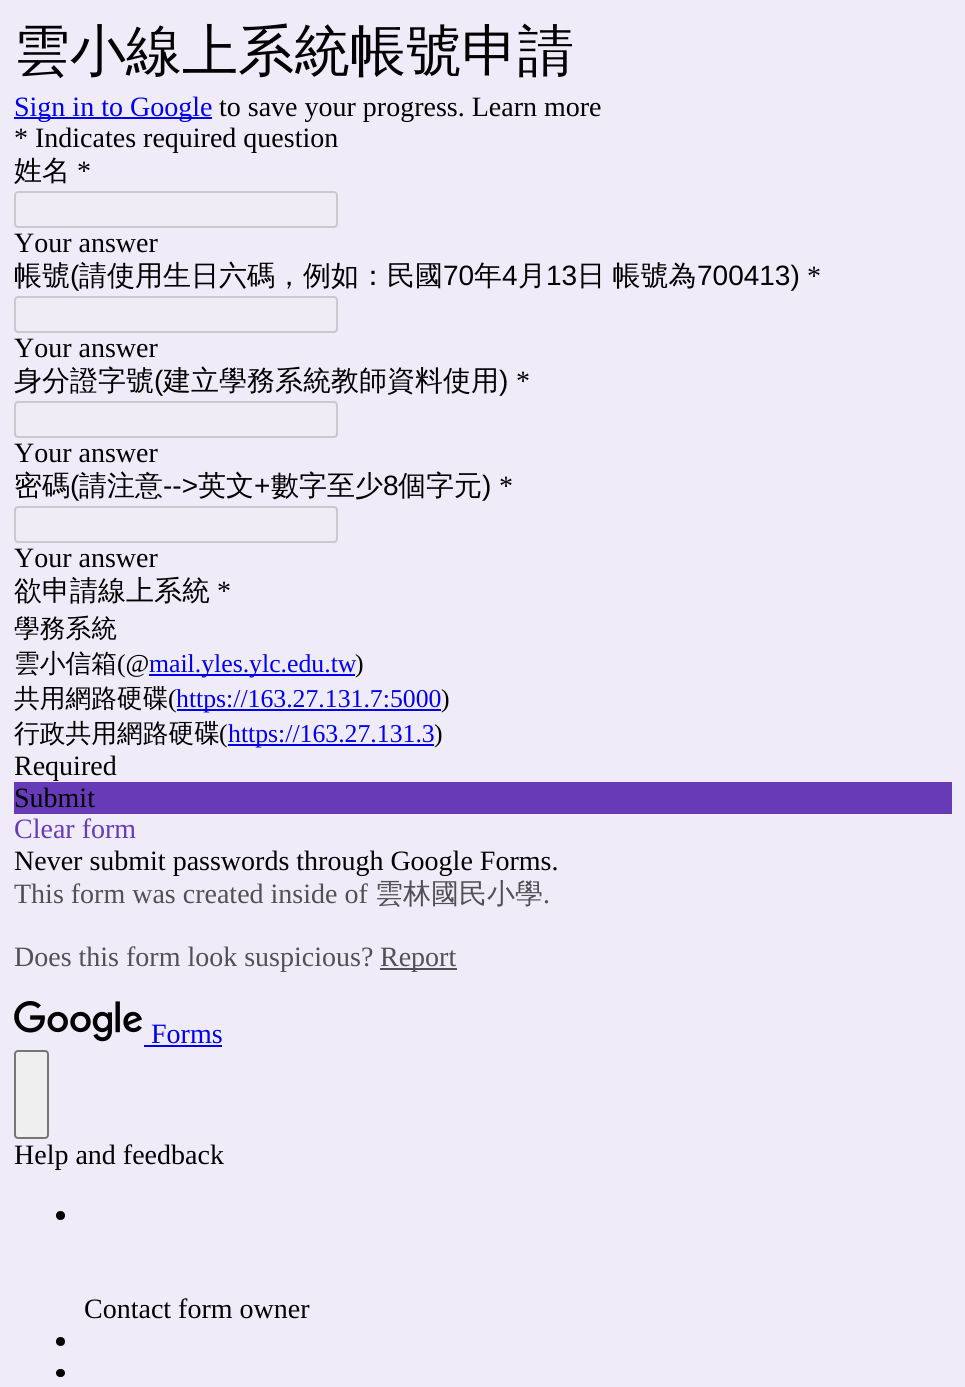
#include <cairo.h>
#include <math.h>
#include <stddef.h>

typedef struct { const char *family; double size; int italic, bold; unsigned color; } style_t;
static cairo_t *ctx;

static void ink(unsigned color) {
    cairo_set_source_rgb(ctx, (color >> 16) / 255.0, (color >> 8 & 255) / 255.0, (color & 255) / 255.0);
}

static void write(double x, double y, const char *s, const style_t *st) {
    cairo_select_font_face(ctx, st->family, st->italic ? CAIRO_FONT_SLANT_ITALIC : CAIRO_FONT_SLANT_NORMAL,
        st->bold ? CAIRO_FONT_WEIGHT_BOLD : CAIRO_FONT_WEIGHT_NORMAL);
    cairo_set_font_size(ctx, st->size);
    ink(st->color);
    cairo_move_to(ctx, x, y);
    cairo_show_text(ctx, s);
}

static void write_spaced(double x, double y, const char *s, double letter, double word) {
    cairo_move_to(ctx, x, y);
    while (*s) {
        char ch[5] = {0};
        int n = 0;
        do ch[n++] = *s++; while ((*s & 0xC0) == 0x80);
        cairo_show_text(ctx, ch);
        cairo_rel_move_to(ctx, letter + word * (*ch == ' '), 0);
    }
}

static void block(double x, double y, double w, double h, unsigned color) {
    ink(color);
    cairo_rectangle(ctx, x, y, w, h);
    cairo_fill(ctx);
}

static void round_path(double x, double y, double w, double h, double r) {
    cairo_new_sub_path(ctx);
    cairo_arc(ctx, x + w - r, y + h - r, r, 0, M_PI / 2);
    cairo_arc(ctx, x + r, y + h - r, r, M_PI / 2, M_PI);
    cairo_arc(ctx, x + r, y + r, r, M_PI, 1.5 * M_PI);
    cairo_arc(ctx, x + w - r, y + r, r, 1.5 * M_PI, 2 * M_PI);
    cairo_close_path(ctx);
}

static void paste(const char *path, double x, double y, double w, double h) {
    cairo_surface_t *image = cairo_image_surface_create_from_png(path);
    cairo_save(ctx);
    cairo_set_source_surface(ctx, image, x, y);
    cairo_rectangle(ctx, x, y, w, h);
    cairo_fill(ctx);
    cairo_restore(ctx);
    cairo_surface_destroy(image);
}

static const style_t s1 = {"WenQuanYi Zen Hei Medium", 56, 0, 0, 0x000000};
static const style_t s2 = {"Liberation Serif", 28, 0, 0, 0x0000ee};
static const style_t s3 = {"Liberation Serif", 28, 0, 0, 0x000000};
static const style_t s4 = {"WenQuanYi Zen Hei Medium", 28, 0, 0, 0x000000};
static const style_t s5 = {"Liberation Sans", 28, 0, 0, 0x000000};
static const style_t s6 = {"WenQuanYi Zen Hei Medium", 25.75, 0, 0, 0x000000};
static const style_t s7 = {"Liberation Serif", 25.75, 0, 0, 0x000000};
static const style_t s8 = {"Liberation Serif", 25.75, 0, 0, 0x0000ee};
static const style_t s9 = {"Liberation Serif", 28, 0, 0, 0x673ab7};
static const style_t s10 = {"Liberation Serif", 28, 0, 0, 0x525054};
static const style_t s11 = {"WenQuanYi Zen Hei Medium", 28, 0, 0, 0x525054};

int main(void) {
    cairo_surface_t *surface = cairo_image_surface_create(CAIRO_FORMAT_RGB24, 965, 1387);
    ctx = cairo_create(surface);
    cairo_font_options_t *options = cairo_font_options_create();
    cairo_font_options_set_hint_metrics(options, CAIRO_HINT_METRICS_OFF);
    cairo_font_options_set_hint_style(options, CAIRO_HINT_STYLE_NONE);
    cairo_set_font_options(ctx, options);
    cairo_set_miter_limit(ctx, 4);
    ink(0xf0ebf8);
    cairo_paint(ctx);
    write(14, 70, "雲小線上系統帳號申請", &s1);
    block(14, 117, 198, 2, 0x0000ee);
    write(14, 116, "Sign in to Google", &s2);
    write(219, 116, "to save your progress. Learn more", &s3);
    write(14, 147, "* Indicates required question", &s3);
    write(14, 180, "姓名", &s4);
    write(77, 180, "*", &s3);
    ink(0xf0ecf5);
    round_path(15, 192, 322, 35, 3);
    cairo_fill_preserve(ctx);
    ink(0xcbc9cf);
    cairo_stroke(ctx);
    write(14, 252, "Your answer", &s3);
    write(14, 285, "帳號", &s4);
    write(70, 285, "(", &s5);
    write(79, 285, "請使用生日六碼，例如：民國", &s4);
    write(443, 285, "70", &s5);
    write(474, 285, "年", &s4);
    write(502, 285, "4", &s5);
    write(518, 285, "月", &s4);
    write(546, 285, "13", &s5);
    cairo_select_font_face(ctx, "WenQuanYi Zen Hei Medium", CAIRO_FONT_SLANT_NORMAL, CAIRO_FONT_WEIGHT_NORMAL);
    write_spaced(577, 285, "日 帳號為", 0, -1);
    write(697, 285, "700413)", &s5);
    write(807, 285, "*", &s3);
    ink(0xf0ecf5);
    round_path(15, 297, 322, 35, 3);
    cairo_fill_preserve(ctx);
    ink(0xcbc9cf);
    cairo_stroke(ctx);
    write(14, 357, "Your answer", &s3);
    write(14, 390, "身分證字號", &s4);
    write(154, 390, "(", &s5);
    write(163, 390, "建立學務系統教師資料使用", &s4);
    write(499, 390, ")", &s5);
    write(516, 390, "*", &s3);
    ink(0xf0ecf5);
    round_path(15, 402, 322, 35, 3);
    cairo_fill_preserve(ctx);
    ink(0xcbc9cf);
    cairo_stroke(ctx);
    write(14, 462, "Your answer", &s3);
    write(14, 495, "密碼", &s4);
    write(70, 495, "(", &s5);
    write(79, 495, "請注意", &s4);
    write(163, 495, "-->", &s5);
    write(198, 495, "英文", &s4);
    write(254, 495, "+", &s5);
    write(271, 495, "數字至少", &s4);
    write(383, 495, "8", &s5);
    write(398, 495, "個字元", &s4);
    write(482, 495, ")", &s5);
    write(499, 495, "*", &s3);
    ink(0xf0ecf5);
    round_path(15, 507, 322, 35, 3);
    cairo_fill_preserve(ctx);
    ink(0xcbc9cf);
    cairo_stroke(ctx);
    write(14, 567, "Your answer", &s3);
    write(14, 600, "欲申請線上系統", &s4);
    write(217, 600, "*", &s3);
    write(14, 637, "學務系統", &s6);
    write(14, 672, "雲小信箱", &s6);
    write(117, 672, "(@", &s7);
    block(149, 674, 206, 2, 0x0000ee);
    write(149, 672, "mail.yles.ylc.edu.tw", &s8);
    write(355, 672, ")", &s7);
    write(14, 707, "共用網路硬碟", &s6);
    write(168, 707, "(", &s7);
    block(177, 709, 264, 2, 0x0000ee);
    write(176, 707, "https://163.27.131.7:5000", &s8);
    write(441, 707, ")", &s7);
    write(14, 742, "行政共用網路硬碟", &s6);
    write(219, 742, "(", &s7);
    block(228, 744, 206, 2, 0x0000ee);
    write(228, 742, "https://163.27.131.3", &s8);
    write(434, 742, ")", &s7);
    write(14, 775, "Required", &s3);
    block(14, 782, 938, 32, 0x673ab7);
    write(14, 807, "Submit", &s3);
    write(14, 838, "Clear form", &s9);
    write(14, 870, "Never submit passwords through Google Forms.", &s3);
    write(14, 903, "This form was created inside of", &s10);
    write(375, 903, "雲林國民小學", &s11);
    write(543, 903, ".", &s10);
    write(14, 966, "Does this form look suspicious?", &s10);
    block(380, 968, 77, 2, 0x525054);
    write(380, 966, "Report", &s10);
    paste("pic1.png", 14, 1001, 128, 41);
    write(151, 1043, "Forms", &s2);
    block(144, 1045, 78, 2, 0x0000ee);
    ink(0xefefef);
    round_path(15, 1051, 33, 87, 3);
    cairo_fill_preserve(ctx);
    ink(0x767676);
    cairo_stroke(ctx);
    write(14, 1164, "Help and feedback", &s3);
    cairo_new_path(ctx);
    cairo_arc(ctx, 60.5, 1215.5, 4.5, 0, 2 * M_PI);
    cairo_fill(ctx);
    write(84, 1318, "Contact form owner", &s3);
    cairo_new_path(ctx);
    cairo_arc(ctx, 60.5, 1341.5, 4.5, 0, 2 * M_PI);
    cairo_fill(ctx);
    round_path(56, 1369, 9, 8, 4);
    cairo_fill(ctx);
    cairo_surface_write_to_png(surface, "screenshot.png");
    cairo_font_options_destroy(options);
    cairo_destroy(ctx);
    cairo_surface_destroy(surface);
    return 0;
}
